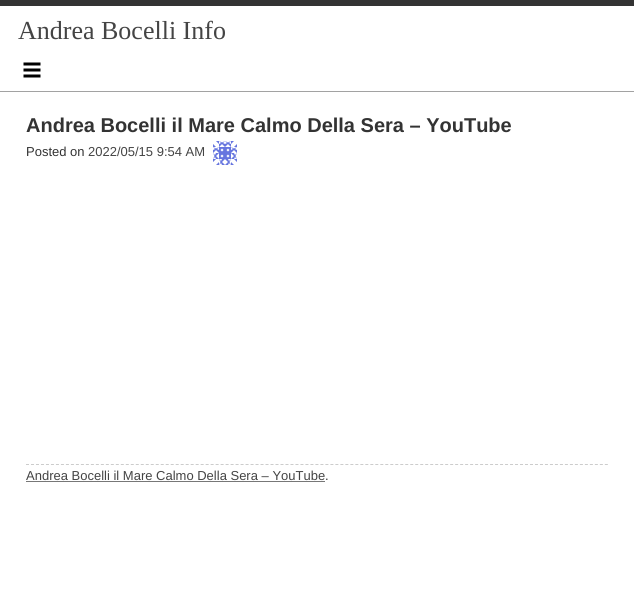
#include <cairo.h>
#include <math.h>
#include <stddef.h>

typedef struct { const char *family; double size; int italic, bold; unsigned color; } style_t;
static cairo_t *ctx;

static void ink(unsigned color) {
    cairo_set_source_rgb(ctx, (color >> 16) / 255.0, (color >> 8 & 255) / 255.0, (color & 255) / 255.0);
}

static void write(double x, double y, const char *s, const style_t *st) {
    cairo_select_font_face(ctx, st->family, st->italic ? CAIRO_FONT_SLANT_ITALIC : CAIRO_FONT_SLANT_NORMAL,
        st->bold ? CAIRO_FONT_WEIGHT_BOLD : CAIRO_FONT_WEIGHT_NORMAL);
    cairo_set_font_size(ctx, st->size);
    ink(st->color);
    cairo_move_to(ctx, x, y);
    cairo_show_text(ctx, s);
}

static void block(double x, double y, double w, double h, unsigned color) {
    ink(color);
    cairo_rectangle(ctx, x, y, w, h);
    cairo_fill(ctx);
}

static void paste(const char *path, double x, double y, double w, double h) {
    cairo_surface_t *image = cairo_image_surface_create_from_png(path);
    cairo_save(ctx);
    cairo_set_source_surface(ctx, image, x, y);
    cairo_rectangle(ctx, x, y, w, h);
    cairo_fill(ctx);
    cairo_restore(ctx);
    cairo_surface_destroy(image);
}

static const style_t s1 = {"Liberation Serif", 26, 0, 0, 0x444444};
static const style_t s2 = {"Liberation Sans", 20, 0, 1, 0x333333};
static const style_t s3 = {"Liberation Sans", 13, 0, 0, 0x333333};
static const style_t s4 = {"Liberation Sans", 13, 0, 0, 0x444444};

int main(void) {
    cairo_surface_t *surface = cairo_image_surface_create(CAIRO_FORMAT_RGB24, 634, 612);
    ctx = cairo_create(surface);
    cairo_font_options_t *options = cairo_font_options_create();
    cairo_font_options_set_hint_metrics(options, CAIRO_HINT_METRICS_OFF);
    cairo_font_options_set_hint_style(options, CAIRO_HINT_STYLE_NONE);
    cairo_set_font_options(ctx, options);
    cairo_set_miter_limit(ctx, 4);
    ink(0xffffff);
    cairo_paint(ctx);
    block(0, 0, 634, 6, 0x333333);
    write(18, 39, "Andrea Bocelli Info", &s1);
    block(0, 91, 634, 1, 0xa2a2a2);
    paste("pic1.png", 23, 62, 18, 16);
    write(26, 132, "Andrea Bocelli il Mare Calmo Della Sera – YouTube", &s2);
    write(26, 156, "Posted on", &s3);
    write(88, 156, "2022/05/15 9:54 AM", &s4);
    paste("pic2.png", 213, 141, 24, 24);
    cairo_new_path(ctx);
    cairo_move_to(ctx, 26, 464.5);
    cairo_line_to(ctx, 608, 464.5);
    ink(0xcccccc);
    cairo_set_line_width(ctx, 1);
    cairo_set_dash(ctx, (double[]){3, 1.99}, 2, 0);
    cairo_stroke(ctx);
    write(26, 480, "Andrea Bocelli il Mare Calmo Della Sera – YouTube", &s4);
    block(26, 481, 299, 1, 0x777777);
    write(325, 480, ".", &s3);
    cairo_surface_write_to_png(surface, "screenshot.png");
    cairo_font_options_destroy(options);
    cairo_destroy(ctx);
    cairo_surface_destroy(surface);
    return 0;
}
